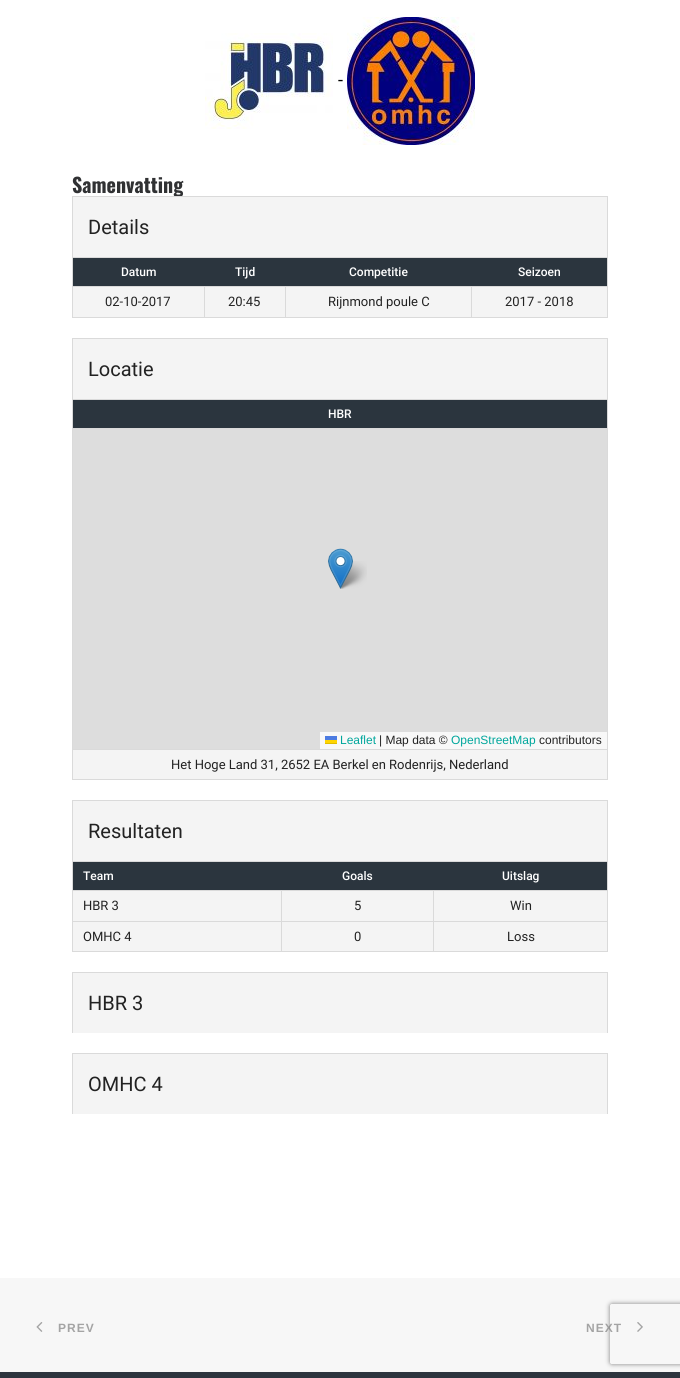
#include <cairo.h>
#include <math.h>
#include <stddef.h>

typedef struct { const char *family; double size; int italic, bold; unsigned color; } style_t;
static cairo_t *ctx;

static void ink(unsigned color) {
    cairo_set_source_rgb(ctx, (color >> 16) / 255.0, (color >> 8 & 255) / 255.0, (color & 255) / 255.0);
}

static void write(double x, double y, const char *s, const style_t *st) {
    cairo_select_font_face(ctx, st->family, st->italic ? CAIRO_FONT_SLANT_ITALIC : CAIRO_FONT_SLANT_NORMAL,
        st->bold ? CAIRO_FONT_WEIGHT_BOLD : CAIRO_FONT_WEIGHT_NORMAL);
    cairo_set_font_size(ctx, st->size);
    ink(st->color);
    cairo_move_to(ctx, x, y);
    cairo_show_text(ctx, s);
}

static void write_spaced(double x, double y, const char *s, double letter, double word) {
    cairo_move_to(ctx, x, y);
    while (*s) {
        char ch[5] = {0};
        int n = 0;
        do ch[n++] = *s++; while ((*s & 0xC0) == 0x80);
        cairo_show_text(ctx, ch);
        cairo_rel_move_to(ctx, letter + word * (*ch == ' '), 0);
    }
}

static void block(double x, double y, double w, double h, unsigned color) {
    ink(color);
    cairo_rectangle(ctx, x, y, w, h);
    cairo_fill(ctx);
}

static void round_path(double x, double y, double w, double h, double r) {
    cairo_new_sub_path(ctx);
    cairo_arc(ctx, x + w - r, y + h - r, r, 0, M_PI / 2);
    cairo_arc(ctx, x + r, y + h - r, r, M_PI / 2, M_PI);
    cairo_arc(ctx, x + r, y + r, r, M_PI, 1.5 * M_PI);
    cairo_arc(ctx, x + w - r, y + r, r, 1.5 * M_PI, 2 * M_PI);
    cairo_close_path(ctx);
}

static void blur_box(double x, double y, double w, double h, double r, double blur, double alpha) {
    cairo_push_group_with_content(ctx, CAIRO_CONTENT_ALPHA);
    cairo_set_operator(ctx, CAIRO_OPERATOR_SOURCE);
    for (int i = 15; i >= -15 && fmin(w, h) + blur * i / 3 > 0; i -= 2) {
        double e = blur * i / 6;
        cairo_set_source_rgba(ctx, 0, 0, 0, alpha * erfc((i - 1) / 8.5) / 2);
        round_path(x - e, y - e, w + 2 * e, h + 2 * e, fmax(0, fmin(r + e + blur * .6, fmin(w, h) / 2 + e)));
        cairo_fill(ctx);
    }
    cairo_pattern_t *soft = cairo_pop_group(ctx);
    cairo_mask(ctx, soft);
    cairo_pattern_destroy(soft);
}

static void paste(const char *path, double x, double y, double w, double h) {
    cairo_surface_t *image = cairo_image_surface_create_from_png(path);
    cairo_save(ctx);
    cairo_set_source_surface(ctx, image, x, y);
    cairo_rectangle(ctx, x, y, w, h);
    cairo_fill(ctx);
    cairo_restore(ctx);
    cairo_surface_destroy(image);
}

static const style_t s1 = {"Roboto", 18, 0, 0, 0x000000};
static const style_t s2 = {"Oswald", 20, 0, 1, 0x303133};
static const style_t s3 = {"Roboto", 20, 0, 0, 0x222222};
static const style_t s4 = {"Roboto Medium", 12, 0, 0, 0xffffff};
static const style_t s5 = {"Roboto", 13, 0, 0, 0x222222};
static const style_t s6 = {"Liberation Sans", 12, 0, 0, 0x00a69c};
static const style_t s7 = {"Liberation Sans", 12, 0, 0, 0x222222};

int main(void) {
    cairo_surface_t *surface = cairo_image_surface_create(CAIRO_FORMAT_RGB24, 680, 1378);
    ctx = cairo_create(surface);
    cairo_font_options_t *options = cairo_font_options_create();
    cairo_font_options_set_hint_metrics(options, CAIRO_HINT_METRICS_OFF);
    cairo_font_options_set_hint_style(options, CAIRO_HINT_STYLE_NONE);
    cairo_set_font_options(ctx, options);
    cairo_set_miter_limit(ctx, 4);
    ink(0xffffff);
    cairo_paint(ctx);
    paste("pic1.png", 205, 33, 128, 96);
    write(338, 86, "-", &s1);
    paste("pic2.png", 347, 17, 128, 128);
    write(72, 193, "Samenvatting", &s2);
    block(73, 197, 534, 60, 0xf4f4f4);
    block(72, 196, 536, 1, 0xdadada);
    block(607, 196, 1, 61, 0xdadada);
    block(72, 196, 1, 61, 0xdadada);
    write(88, 234, "Details", &s3);
    block(73, 287, 534, 30, 0xf4f4f4);
    block(72, 257, 536, 1, 0xdadada);
    block(607, 257, 1, 61, 0xdadada);
    block(72, 317, 536, 1, 0xdadada);
    block(72, 257, 1, 61, 0xdadada);
    block(73, 258, 534, 28, 0x2b353e);
    write(121, 276, "Datum", &s4);
    write(235, 276, "Tijd", &s4);
    write(349, 276, "Competitie", &s4);
    write(518, 276, "Seizoen", &s4);
    block(471, 286, 137, 1, 0xdadada);
    block(471, 286, 1, 32, 0xdadada);
    block(285, 286, 187, 1, 0xdadada);
    block(285, 286, 1, 32, 0xdadada);
    block(204, 286, 82, 1, 0xdadada);
    block(204, 286, 1, 32, 0xdadada);
    block(72, 286, 133, 1, 0xdadada);
    write(105, 306, "02-10-2017", &s5);
    write(228, 306, "20:45", &s5);
    write(328, 306, "Rijnmond poule C", &s5);
    write(505, 306, "2017 - 2018", &s5);
    block(73, 339, 534, 60, 0xf4f4f4);
    block(72, 338, 536, 1, 0xdadada);
    block(607, 338, 1, 61, 0xdadada);
    block(72, 338, 1, 61, 0xdadada);
    write(88, 376, "Locatie", &s3);
    block(73, 750, 534, 29, 0xf4f4f4);
    block(72, 399, 536, 1, 0xdadada);
    block(607, 399, 1, 381, 0xdadada);
    block(72, 779, 536, 1, 0xdadada);
    block(72, 399, 1, 381, 0xdadada);
    block(73, 400, 534, 28, 0x2b353e);
    write(328, 418, "HBR", &s4);
    block(72, 428, 536, 1, 0xdadada);
    block(73, 429, 534, 320, 0xdddddd);
    paste("pic4.png", 338, 561, 29, 28);
    paste("pic3.png", 328, 548, 25, 41);
    block(320, 732, 287, 17, 0xf8f8f8);
    write(340, 744, "Leaflet", &s6);
    block(325, 736, 12, 4, 0x4c7be1);
    block(325, 740, 12, 3, 0xffd500);
    block(325, 743, 12, 1, 0xe0bc00);
    write(379, 744, "| Map data ©", &s7);
    write(451, 744, "OpenStreetMap", &s6);
    write(539, 744, "contributors", &s7);
    block(72, 749, 536, 1, 0xdadada);
    write(171, 769, "Het Hoge Land 31, 2652 EA Berkel en Rodenrijs, Nederland", &s5);
    block(73, 801, 534, 60, 0xf4f4f4);
    block(72, 800, 536, 1, 0xdadada);
    block(607, 800, 1, 61, 0xdadada);
    block(72, 800, 1, 61, 0xdadada);
    write(88, 838, "Resultaten", &s3);
    block(73, 891, 534, 60, 0xf4f4f4);
    block(72, 861, 536, 1, 0xdadada);
    block(607, 861, 1, 91, 0xdadada);
    block(72, 951, 536, 1, 0xdadada);
    block(72, 861, 1, 91, 0xdadada);
    block(73, 862, 534, 28, 0x2b353e);
    write(83, 880, "Team", &s4);
    write(342, 880, "Goals", &s4);
    write(502, 880, "Uitslag", &s4);
    block(433, 890, 175, 1, 0xdadada);
    block(433, 921, 175, 1, 0xdadada);
    block(433, 921, 1, 31, 0xdadada);
    block(281, 921, 153, 1, 0xdadada);
    block(433, 890, 1, 32, 0xdadada);
    block(281, 890, 153, 1, 0xdadada);
    block(281, 921, 1, 31, 0xdadada);
    block(72, 921, 210, 1, 0xdadada);
    block(281, 890, 1, 32, 0xdadada);
    block(72, 890, 210, 1, 0xdadada);
    write(83, 910, "HBR 3", &s5);
    write(354, 910, "5", &s5);
    write(510, 910, "Win", &s5);
    write(83, 941, "OMHC 4", &s5);
    write(354, 941, "0", &s5);
    write(507, 941, "Loss", &s5);
    block(73, 973, 534, 60, 0xf4f4f4);
    block(72, 972, 536, 1, 0xdadada);
    block(607, 972, 1, 61, 0xdadada);
    block(72, 972, 1, 61, 0xdadada);
    write(88, 1010, "HBR 3", &s3);
    block(73, 1054, 534, 60, 0xf4f4f4);
    block(72, 1053, 536, 1, 0xdadada);
    block(607, 1053, 1, 61, 0xdadada);
    block(72, 1053, 1, 61, 0xdadada);
    write(88, 1091, "OMHC 4", &s3);
    block(0, 1278, 680, 94, 0xf7f7f7);
    paste("pic5.png", 36, 1322, 7, 10);
    cairo_select_font_face(ctx, "Liberation Sans", CAIRO_FONT_SLANT_NORMAL, CAIRO_FONT_WEIGHT_BOLD);
    cairo_set_font_size(ctx, 12);
    ink(0xa4a4a4);
    write_spaced(58, 1332, "PREV", 1, 0);
    write_spaced(586, 1332, "NEXT", 1, 0);
    paste("pic6.png", 637, 1322, 6, 10);
    block(0, 1372, 680, 6, 0x2d353e);
    cairo_save(ctx);
    cairo_set_fill_rule(ctx, CAIRO_FILL_RULE_EVEN_ODD);
    cairo_new_path(ctx);
    cairo_move_to(ctx, 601, 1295);
    cairo_line_to(ctx, 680, 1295);
    cairo_line_to(ctx, 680, 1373);
    cairo_line_to(ctx, 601, 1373);
    cairo_close_path(ctx);
    cairo_move_to(ctx, 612, 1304);
    cairo_line_to(ctx, 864, 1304);
    cairo_curve_to(ctx, 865, 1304, 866, 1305, 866, 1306);
    cairo_line_to(ctx, 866, 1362);
    cairo_curve_to(ctx, 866, 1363, 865, 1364, 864, 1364);
    cairo_line_to(ctx, 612, 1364);
    cairo_curve_to(ctx, 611, 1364, 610, 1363, 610, 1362);
    cairo_line_to(ctx, 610, 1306);
    cairo_curve_to(ctx, 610, 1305, 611, 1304, 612, 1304);
    cairo_close_path(ctx);
    cairo_clip(ctx);
    ink(0x808080);
    blur_box(610, 1304, 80, 60, 2, 2.5, 1);
    cairo_restore(ctx);
    cairo_surface_write_to_png(surface, "screenshot.png");
    cairo_font_options_destroy(options);
    cairo_destroy(ctx);
    cairo_surface_destroy(surface);
    return 0;
}
